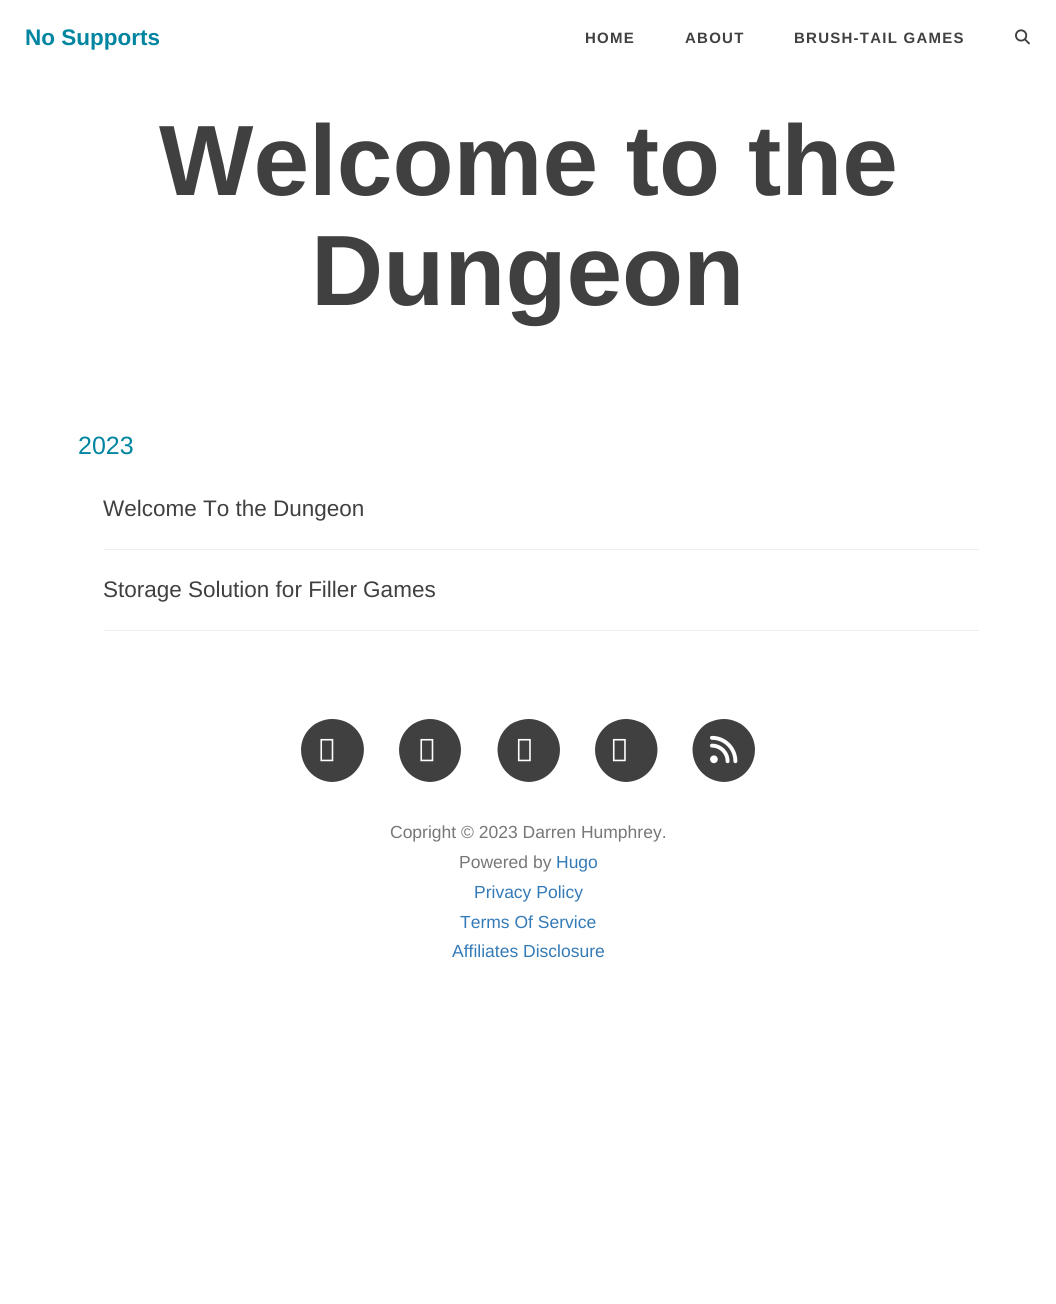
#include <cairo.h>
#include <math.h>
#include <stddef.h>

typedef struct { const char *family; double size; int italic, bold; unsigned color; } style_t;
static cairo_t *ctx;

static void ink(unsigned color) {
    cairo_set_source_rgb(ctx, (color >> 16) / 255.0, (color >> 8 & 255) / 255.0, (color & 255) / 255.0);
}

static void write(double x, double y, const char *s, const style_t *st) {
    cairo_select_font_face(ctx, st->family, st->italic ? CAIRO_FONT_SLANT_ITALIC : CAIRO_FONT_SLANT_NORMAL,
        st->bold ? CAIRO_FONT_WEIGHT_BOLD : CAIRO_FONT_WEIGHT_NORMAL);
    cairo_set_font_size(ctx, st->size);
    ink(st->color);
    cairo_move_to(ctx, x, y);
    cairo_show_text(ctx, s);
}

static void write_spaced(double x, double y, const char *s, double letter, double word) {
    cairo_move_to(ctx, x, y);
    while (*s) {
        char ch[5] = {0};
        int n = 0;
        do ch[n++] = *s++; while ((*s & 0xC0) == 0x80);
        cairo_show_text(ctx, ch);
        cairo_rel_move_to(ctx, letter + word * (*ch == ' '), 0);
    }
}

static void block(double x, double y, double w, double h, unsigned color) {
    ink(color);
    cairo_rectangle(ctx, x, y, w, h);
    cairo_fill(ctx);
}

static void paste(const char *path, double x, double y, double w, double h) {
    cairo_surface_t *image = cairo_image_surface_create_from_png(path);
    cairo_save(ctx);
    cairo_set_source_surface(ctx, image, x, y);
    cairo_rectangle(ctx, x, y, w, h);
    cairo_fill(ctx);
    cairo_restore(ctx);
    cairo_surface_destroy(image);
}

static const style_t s1 = {"Liberation Sans", 22.5, 0, 1, 0x0085a1};
static const style_t s2 = {"Liberation Sans", 100, 0, 1, 0x404040};
static const style_t s3 = {"Liberation Sans", 25, 0, 0, 0x0085a1};
static const style_t s4 = {"Liberation Sans", 22.5, 0, 0, 0x404040};
static const style_t s5 = {"Liberation Sans", 17.5, 0, 0, 0x777777};
static const style_t s6 = {"Liberation Sans", 17.5, 0, 0, 0x337ab7};

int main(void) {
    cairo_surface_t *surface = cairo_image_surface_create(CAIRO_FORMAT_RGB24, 1056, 1304);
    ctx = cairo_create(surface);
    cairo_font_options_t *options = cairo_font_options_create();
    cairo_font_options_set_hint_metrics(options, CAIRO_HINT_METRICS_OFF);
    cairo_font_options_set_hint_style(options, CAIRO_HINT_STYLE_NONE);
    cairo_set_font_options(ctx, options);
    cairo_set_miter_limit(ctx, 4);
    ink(0xffffff);
    cairo_paint(ctx);
    write(25, 45, "No Supports", &s1);
    cairo_set_font_size(ctx, 15);
    ink(0x404040);
    write_spaced(585, 43, "HOME", 1.25, 0);
    write_spaced(685, 43, "ABOUT", 1.25, 0);
    write_spaced(794, 43, "BRUSH-TAIL GAMES", 1.25, 0);
    paste("pic1.png", 1015, 29, 15, 16);
    write(159, 195, "Welcome to the", &s2);
    write(311, 305, "Dungeon", &s2);
    write(78, 454, "2023", &s3);
    write(103, 516, "Welcome To the Dungeon", &s4);
    block(104, 549, 875, 1, 0xeeeeee);
    write(103, 597, "Storage Solution for Filler Games", &s4);
    block(104, 630, 875, 1, 0xeeeeee);
    ink(0x404040);
    cairo_new_path(ctx);
    cairo_move_to(ctx, 332, 782);
    cairo_curve_to(ctx, 363, 781, 376, 742, 350, 724);
    cairo_curve_to(ctx, 345, 721, 339, 719, 332, 719);
    cairo_curve_to(ctx, 326, 719, 320, 721, 315, 724);
    cairo_curve_to(ctx, 289, 742, 302, 781, 332, 782);
    cairo_close_path(ctx);
    cairo_fill(ctx);
    paste("pic2.png", 320, 738, 14, 24);
    cairo_new_path(ctx);
    cairo_move_to(ctx, 430, 782);
    cairo_curve_to(ctx, 460, 781, 473, 742, 447, 724);
    cairo_curve_to(ctx, 442, 721, 436, 719, 430, 719);
    cairo_curve_to(ctx, 424, 719, 418, 721, 413, 724);
    cairo_curve_to(ctx, 387, 742, 400, 781, 430, 782);
    cairo_close_path(ctx);
    cairo_fill(ctx);
    paste("pic2.png", 420, 738, 14, 24);
    cairo_new_path(ctx);
    cairo_move_to(ctx, 529, 782);
    cairo_curve_to(ctx, 559, 781, 572, 742, 546, 724);
    cairo_curve_to(ctx, 541, 721, 535, 719, 529, 719);
    cairo_curve_to(ctx, 523, 719, 516, 721, 511, 724);
    cairo_curve_to(ctx, 486, 742, 498, 781, 529, 782);
    cairo_close_path(ctx);
    cairo_fill(ctx);
    paste("pic3.png", 517, 738, 14, 24);
    cairo_new_path(ctx);
    cairo_move_to(ctx, 626, 782);
    cairo_curve_to(ctx, 657, 781, 669, 742, 644, 724);
    cairo_curve_to(ctx, 639, 721, 632, 719, 626, 719);
    cairo_curve_to(ctx, 620, 719, 614, 721, 609, 724);
    cairo_curve_to(ctx, 583, 742, 596, 781, 626, 782);
    cairo_close_path(ctx);
    cairo_fill(ctx);
    paste("pic3.png", 612, 738, 14, 24);
    cairo_new_path(ctx);
    cairo_move_to(ctx, 724, 782);
    cairo_curve_to(ctx, 754, 781, 767, 742, 741, 724);
    cairo_curve_to(ctx, 736, 721, 730, 719, 724, 719);
    cairo_curve_to(ctx, 718, 719, 711, 721, 706, 724);
    cairo_curve_to(ctx, 681, 742, 693, 781, 724, 782);
    cairo_close_path(ctx);
    cairo_fill(ctx);
    paste("pic4.png", 710, 735, 28, 29);
    write(390, 838, "Copright © 2023 Darren Humphrey.", &s5);
    write(459, 868, "Powered by", &s5);
    write(556, 868, "Hugo", &s6);
    write(474, 898, "Privacy Policy", &s6);
    write(460, 928, "Terms Of Service", &s6);
    write(452, 957, "Affiliates Disclosure", &s6);
    cairo_surface_write_to_png(surface, "screenshot.png");
    cairo_font_options_destroy(options);
    cairo_destroy(ctx);
    cairo_surface_destroy(surface);
    return 0;
}
